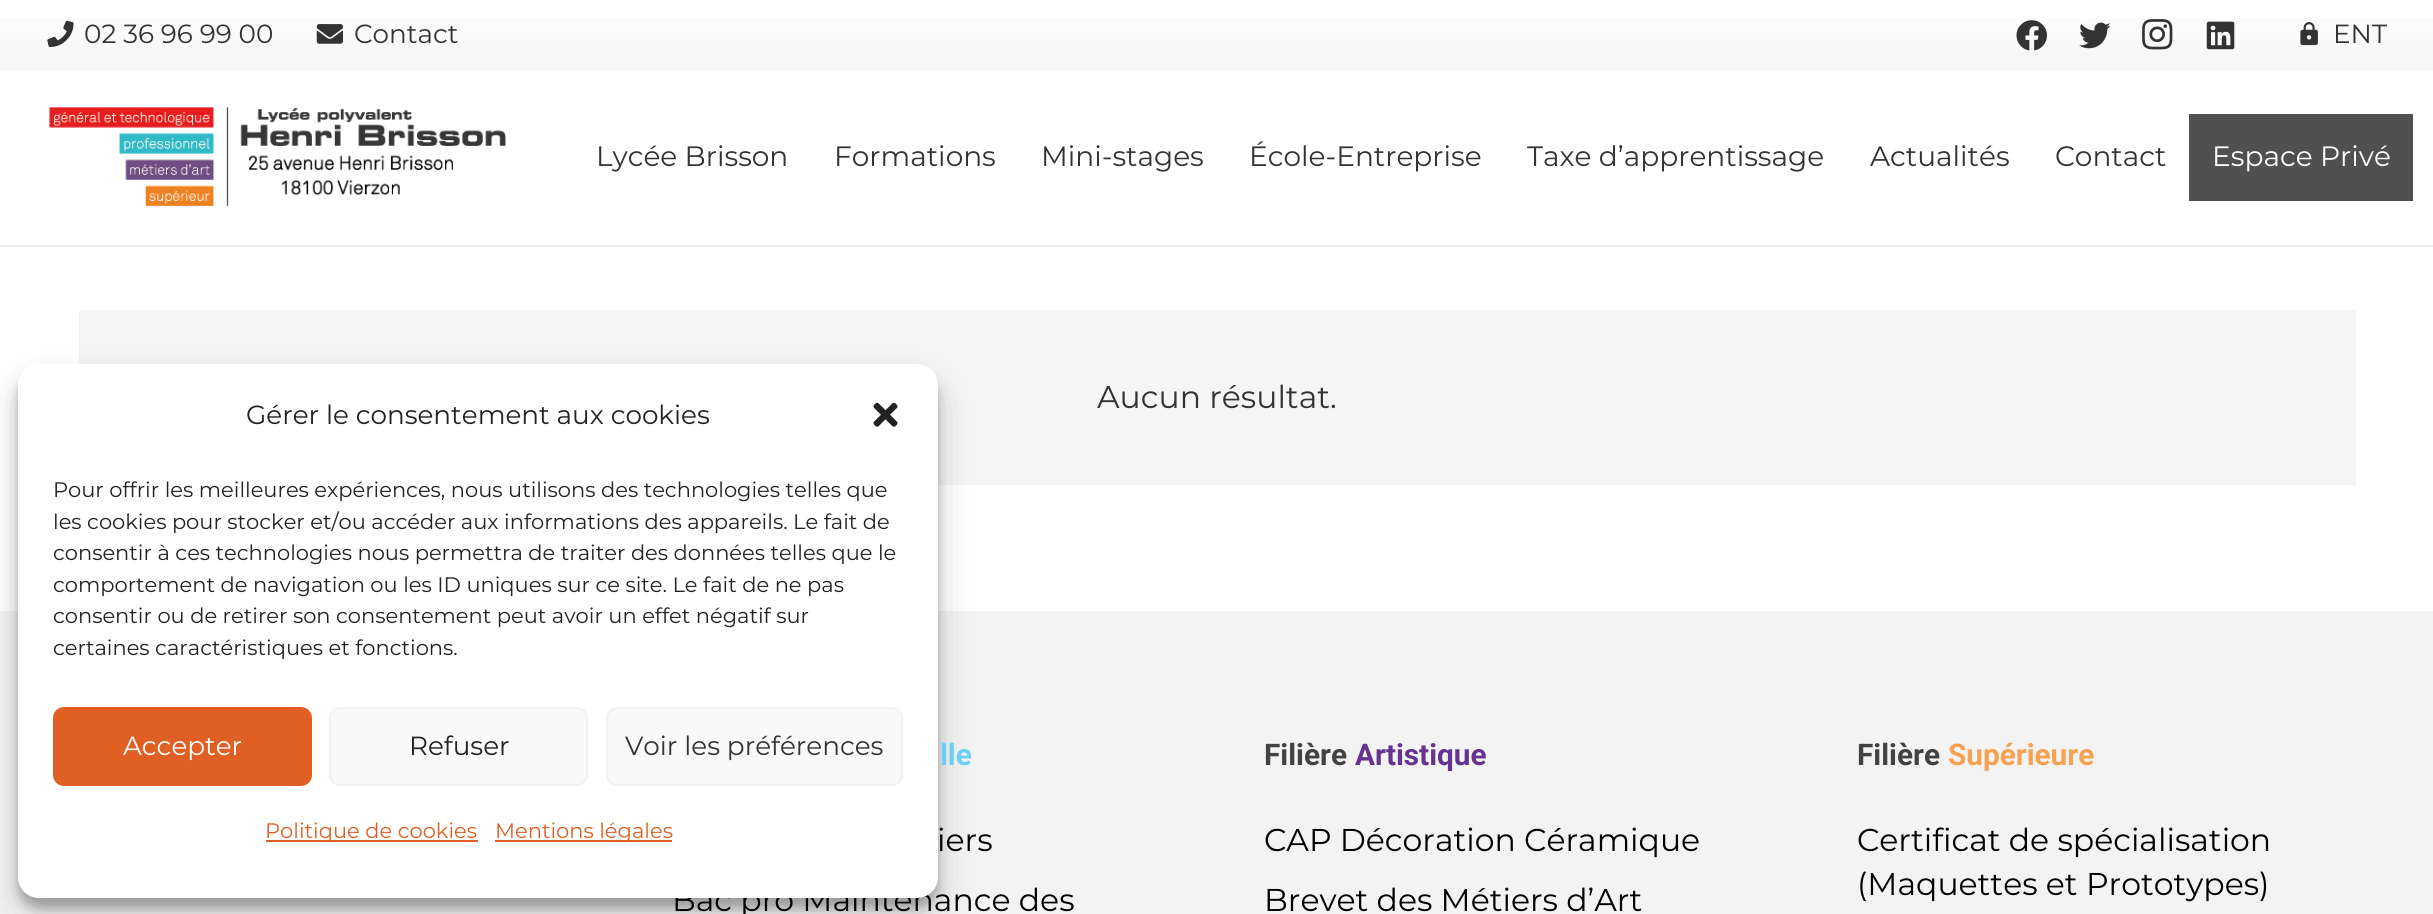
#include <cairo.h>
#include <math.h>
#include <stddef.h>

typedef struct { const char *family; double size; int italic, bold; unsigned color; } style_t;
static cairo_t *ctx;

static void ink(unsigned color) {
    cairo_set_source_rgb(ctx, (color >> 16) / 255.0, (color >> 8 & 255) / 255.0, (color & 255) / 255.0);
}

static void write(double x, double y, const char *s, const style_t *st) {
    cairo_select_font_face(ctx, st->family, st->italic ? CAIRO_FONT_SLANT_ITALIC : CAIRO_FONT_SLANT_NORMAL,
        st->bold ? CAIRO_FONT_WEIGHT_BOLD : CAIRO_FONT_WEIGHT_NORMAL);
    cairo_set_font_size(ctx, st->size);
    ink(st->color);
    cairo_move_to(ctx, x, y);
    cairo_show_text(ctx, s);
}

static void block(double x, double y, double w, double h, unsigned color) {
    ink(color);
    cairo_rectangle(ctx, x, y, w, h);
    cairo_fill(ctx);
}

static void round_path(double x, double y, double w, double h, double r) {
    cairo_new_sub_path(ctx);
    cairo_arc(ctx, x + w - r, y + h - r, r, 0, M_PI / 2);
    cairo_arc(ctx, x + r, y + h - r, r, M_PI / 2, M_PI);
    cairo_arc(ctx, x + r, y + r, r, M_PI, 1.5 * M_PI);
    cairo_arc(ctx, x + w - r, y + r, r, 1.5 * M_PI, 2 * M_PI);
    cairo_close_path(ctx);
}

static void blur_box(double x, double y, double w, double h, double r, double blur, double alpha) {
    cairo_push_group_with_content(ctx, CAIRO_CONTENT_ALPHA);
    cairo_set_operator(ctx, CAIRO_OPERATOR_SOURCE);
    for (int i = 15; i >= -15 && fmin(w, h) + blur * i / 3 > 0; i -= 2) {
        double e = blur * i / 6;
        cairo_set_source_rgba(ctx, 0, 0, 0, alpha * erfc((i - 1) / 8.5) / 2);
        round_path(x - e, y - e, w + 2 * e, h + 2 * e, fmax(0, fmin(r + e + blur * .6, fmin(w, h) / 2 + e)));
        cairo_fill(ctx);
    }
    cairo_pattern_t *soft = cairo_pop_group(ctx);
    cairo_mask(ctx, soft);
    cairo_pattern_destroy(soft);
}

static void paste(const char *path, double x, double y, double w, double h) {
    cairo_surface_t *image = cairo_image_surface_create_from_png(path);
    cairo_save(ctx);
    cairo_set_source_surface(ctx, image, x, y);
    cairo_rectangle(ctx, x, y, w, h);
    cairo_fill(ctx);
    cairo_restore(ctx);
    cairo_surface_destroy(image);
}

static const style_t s1 = {"Montserrat", 26.25, 0, 0, 0x333333};
static const style_t s2 = {"Montserrat", 28, 0, 0, 0x333333};
static const style_t s3 = {"Montserrat", 28, 0, 0, 0xffffff};
static const style_t s4 = {"Montserrat", 31.5, 0, 0, 0x333333};
static const style_t s5 = {"Montserrat", 31.5, 0, 0, 0x000000};
static const style_t s6 = {"Montserrat", 26.25, 0, 0, 0x222222};
static const style_t s7 = {"Montserrat", 21, 0, 0, 0x222222};
static const style_t s8 = {"Montserrat", 26.25, 0, 0, 0xffffff};
static const style_t s9 = {"Montserrat", 21, 0, 0, 0xe06023};
static const style_t s10 = {"Roboto", 29.75, 0, 1, 0x6ccff6};
static const style_t s11 = {"Roboto", 29.75, 0, 1, 0x424242};
static const style_t s12 = {"Roboto", 29.75, 0, 1, 0x673391};
static const style_t s13 = {"Roboto", 29.75, 0, 1, 0xf7a153};

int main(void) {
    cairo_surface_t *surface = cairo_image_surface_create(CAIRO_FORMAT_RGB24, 2433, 914);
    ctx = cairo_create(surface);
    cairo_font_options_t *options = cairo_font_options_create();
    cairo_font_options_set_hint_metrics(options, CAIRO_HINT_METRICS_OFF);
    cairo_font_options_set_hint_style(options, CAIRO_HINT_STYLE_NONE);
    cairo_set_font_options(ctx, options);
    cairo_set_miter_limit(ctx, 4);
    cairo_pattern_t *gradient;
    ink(0xffffff);
    cairo_paint(ctx);
    gradient = cairo_pattern_create_linear(1217, 70, 1217, 0);
    cairo_pattern_add_color_stop_rgba(gradient, 0, 0.961, 0.961, 0.961, 1);
    cairo_pattern_add_color_stop_rgba(gradient, 1, 1, 1, 1, 1);
    cairo_set_source(ctx, gradient);
    cairo_pattern_destroy(gradient);
    cairo_rectangle(ctx, 0, 18, 2433, 52);
    cairo_fill(ctx);
    paste("pic1.png", 47, 20, 27, 27);
    write(84, 43, "02 36 96 99 00", &s1);
    paste("pic2.png", 316, 24, 27, 20);
    write(354, 43, "Contact", &s1);
    paste("pic3.png", 2016, 20, 31, 31);
    paste("pic4.png", 2079, 22, 32, 27);
    paste("pic5.png", 2142, 19, 31, 31);
    paste("pic6.png", 2206, 21, 29, 29);
    paste("pic7.png", 2300, 22, 18, 24);
    write(2333, 43, "ENT", &s1);
    block(0, 245, 2433, 2, 0xebebeb);
    paste("pic8.png", 49, 107, 457, 100);
    write(596, 166, "Lycée Brisson", &s2);
    write(834, 166, "Formations", &s2);
    write(1041, 166, "Mini-stages", &s2);
    write(1249, 166, "École-Entreprise", &s2);
    write(1527, 166, "Taxe d’apprentissage", &s2);
    write(1870, 166, "Actualités", &s2);
    write(2055, 166, "Contact", &s2);
    block(2189, 114, 224, 87, 0x505050);
    write(2212, 166, "Espace Privé", &s3);
    block(79, 310, 2277, 175, 0xf5f5f5);
    write(1097, 408, "Aucun résultat.", &s4);
    block(0, 611, 2433, 303, 0xf3f3f3);
    ink(0x000000);
    blur_box(18, 375, 920, 533, 21, 5, 0.23);
    blur_box(18, 382, 920, 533, 21, 17.5, 0.19);
    write(672, 911, "Bac pro Maintenance des", &s5);
    ink(0xffffff);
    round_path(18, 364, 920, 534, 21);
    cairo_fill(ctx);
    write(246, 424, "Gérer le consentement aux cookies", &s6);
    paste("pic9.png", 873, 402, 25, 25);
    write(53, 497, "Pour offrir les meilleures expériences, nous utilisons des technologies telles que", &s7);
    write(53, 529, "les cookies pour stocker et/ou accéder aux informations des appareils. Le fait de", &s7);
    write(53, 560, "consentir à ces technologies nous permettra de traiter des données telles que le", &s7);
    write(53, 592, "comportement de navigation ou les ID uniques sur ce site. Le fait de ne pas", &s7);
    write(53, 623, "consentir ou de retirer son consentement peut avoir un effet négatif sur", &s7);
    write(53, 655, "certaines caractéristiques et fonctions.", &s7);
    ink(0xe06023);
    round_path(54, 708, 257, 77, 10);
    cairo_fill_preserve(ctx);
    cairo_stroke(ctx);
    write(123, 755, "Accepter", &s8);
    ink(0xf9f9f9);
    round_path(330, 708, 257, 77, 10);
    cairo_fill_preserve(ctx);
    ink(0xf2f2f2);
    cairo_stroke(ctx);
    write(409, 755, "Refuser", &s6);
    ink(0xf9f9f9);
    round_path(607, 708, 295, 77, 10);
    cairo_fill_preserve(ctx);
    ink(0xf2f2f2);
    cairo_stroke(ctx);
    write(625, 755, "Voir les préférences", &s1);
    block(266, 840, 212, 2, 0xe06023);
    write(265, 838, "Politique de cookies", &s9);
    block(495, 840, 177, 2, 0xe06023);
    write(495, 838, "Mentions légales", &s9);
    write(940, 765, "lle", &s10);
    write(937, 851, "iers", &s5);
    write(1264, 765, "Filière", &s11);
    write(1355, 765, "Artistique", &s12);
    write(1264, 851, "CAP Décoration Céramique", &s5);
    write(1264, 911, "Brevet des Métiers d’Art", &s5);
    write(1857, 765, "Filière", &s11);
    write(1948, 765, "Supérieure", &s13);
    write(1857, 851, "Certificat de spécialisation", &s5);
    write(1857, 895, "(Maquettes et Prototypes)", &s5);
    cairo_surface_write_to_png(surface, "screenshot.png");
    cairo_font_options_destroy(options);
    cairo_destroy(ctx);
    cairo_surface_destroy(surface);
    return 0;
}
